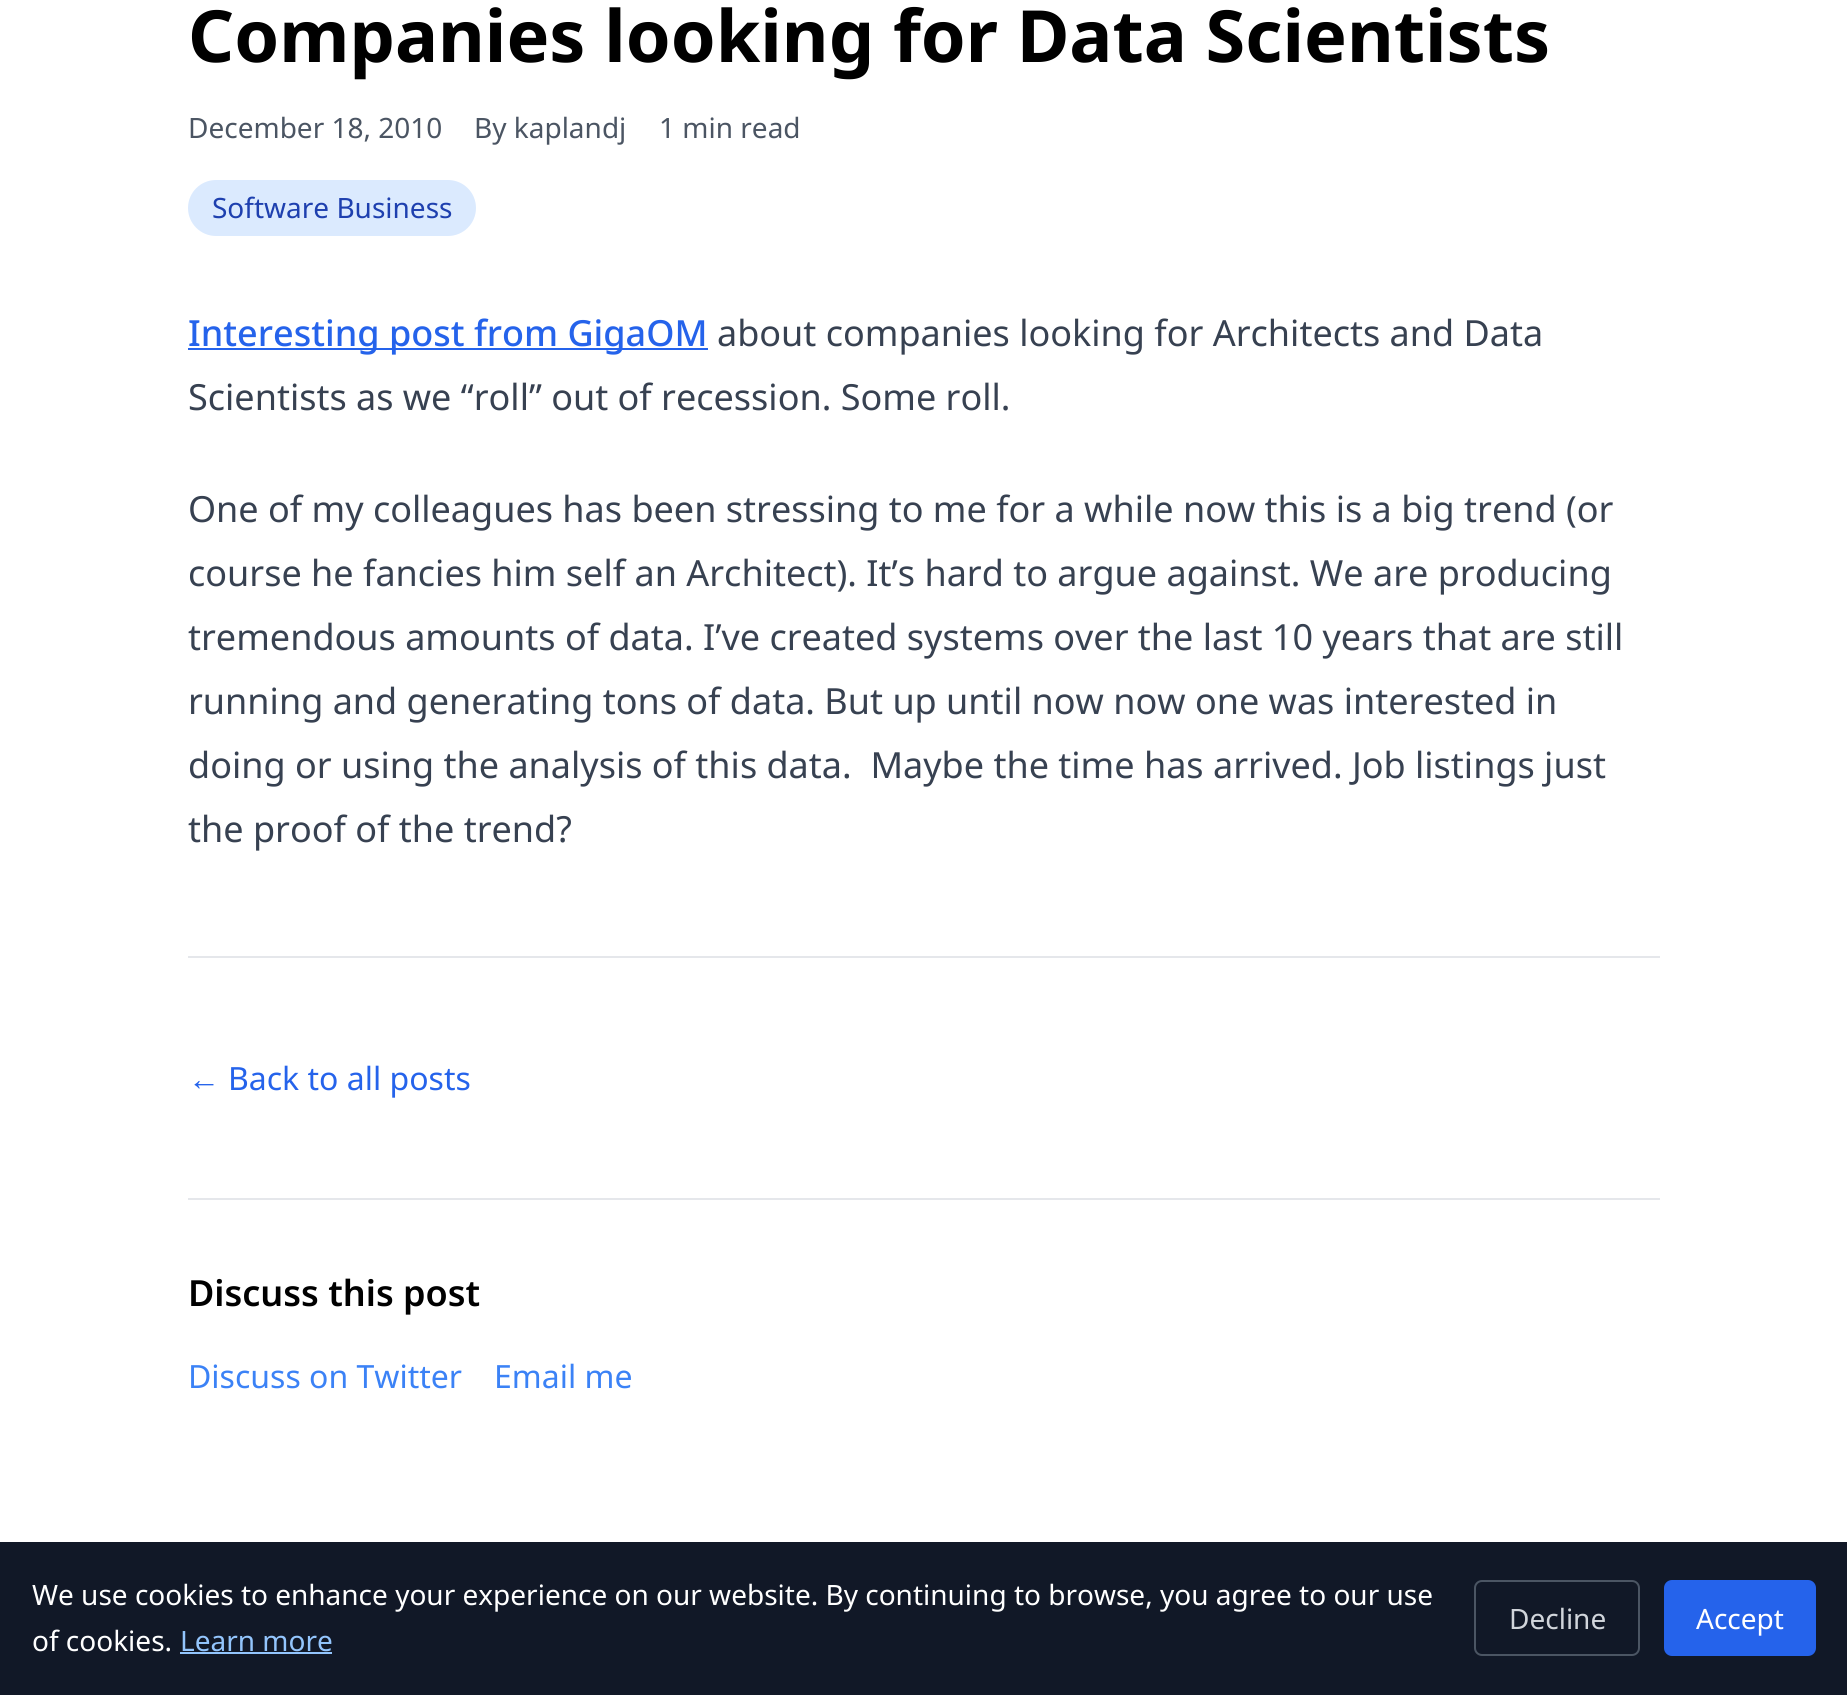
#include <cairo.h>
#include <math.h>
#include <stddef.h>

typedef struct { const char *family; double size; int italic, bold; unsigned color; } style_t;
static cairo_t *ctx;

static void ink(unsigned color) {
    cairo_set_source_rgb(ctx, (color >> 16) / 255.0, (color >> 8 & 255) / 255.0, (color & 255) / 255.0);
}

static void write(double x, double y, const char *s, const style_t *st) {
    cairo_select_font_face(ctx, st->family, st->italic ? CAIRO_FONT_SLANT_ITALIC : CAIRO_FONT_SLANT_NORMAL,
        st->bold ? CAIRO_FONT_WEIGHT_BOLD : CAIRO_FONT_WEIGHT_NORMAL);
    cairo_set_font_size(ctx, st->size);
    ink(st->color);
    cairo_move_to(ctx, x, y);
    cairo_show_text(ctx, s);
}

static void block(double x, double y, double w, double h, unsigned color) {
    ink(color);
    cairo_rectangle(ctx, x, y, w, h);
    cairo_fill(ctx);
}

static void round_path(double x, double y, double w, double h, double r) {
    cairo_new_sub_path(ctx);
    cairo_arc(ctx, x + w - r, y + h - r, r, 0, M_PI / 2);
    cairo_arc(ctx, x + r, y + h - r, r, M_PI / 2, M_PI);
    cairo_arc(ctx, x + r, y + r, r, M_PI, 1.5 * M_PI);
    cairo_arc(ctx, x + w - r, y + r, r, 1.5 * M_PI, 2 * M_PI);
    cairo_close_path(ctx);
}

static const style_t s1 = {"Noto Sans", 72, 0, 1, 0x000000};
static const style_t s2 = {"Noto Sans", 28, 0, 0, 0x4b5563};
static const style_t s3 = {"Noto Sans", 28, 0, 0, 0x1e40af};
static const style_t s4 = {"Noto Sans Medium", 36, 0, 0, 0x2563eb};
static const style_t s5 = {"Noto Sans", 36, 0, 0, 0x374151};
static const style_t s6 = {"Liberation Sans", 32, 0, 0, 0x2563eb};
static const style_t s7 = {"Noto Sans", 32, 0, 0, 0x2563eb};
static const style_t s8 = {"Noto Sans SemiBold", 36, 0, 0, 0x000000};
static const style_t s9 = {"Noto Sans", 32, 0, 0, 0x3b82f6};
static const style_t s10 = {"Noto Sans", 28, 0, 0, 0xffffff};
static const style_t s11 = {"Noto Sans", 28, 0, 0, 0x93c5fd};
static const style_t s12 = {"Noto Sans", 28, 0, 0, 0xd1d5db};

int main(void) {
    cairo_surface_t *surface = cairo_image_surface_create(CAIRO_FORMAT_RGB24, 1847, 1695);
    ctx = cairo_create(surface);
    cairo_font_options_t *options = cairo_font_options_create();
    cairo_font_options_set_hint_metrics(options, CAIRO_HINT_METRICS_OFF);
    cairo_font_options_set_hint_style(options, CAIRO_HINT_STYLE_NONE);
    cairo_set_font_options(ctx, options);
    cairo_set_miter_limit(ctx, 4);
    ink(0xffffff);
    cairo_paint(ctx);
    write(188, 62, "Companies looking for Data Scientists", &s1);
    write(188, 138, "December 18, 2010", &s2);
    write(474, 138, "By kaplandj", &s2);
    write(659, 138, "1 min read", &s2);
    ink(0xdbeafe);
    round_path(188, 180, 288, 56, 28);
    cairo_fill(ctx);
    write(212, 218, "Software Business", &s3);
    block(188, 348, 520, 2, 0x2563eb);
    write(188, 346, "Interesting post from GigaOM", &s4);
    write(717, 346, "about companies looking for Architects and Data", &s5);
    write(188, 410, "Scientists as we “roll” out of recession. Some roll.", &s5);
    write(188, 522, "One of my colleagues has been stressing to me for a while now this is a big trend (or", &s5);
    write(188, 586, "course he fancies him self an Architect). It’s hard to argue against. We are producing", &s5);
    write(188, 650, "tremendous amounts of data. I’ve created systems over the last 10 years that are still", &s5);
    write(188, 714, "running and generating tons of data. But up until now now one was interested in", &s5);
    write(188, 778, "doing or using the analysis of this data.  Maybe the time has arrived. Job listings just", &s5);
    write(188, 842, "the proof of the trend?", &s5);
    block(188, 956, 1472, 2, 0xe5e7eb);
    write(188, 1090, "←", &s6);
    write(228, 1090, "Back to all posts", &s7);
    block(188, 1198, 1472, 2, 0xe5e7eb);
    write(188, 1306, "Discuss this post", &s8);
    write(188, 1388, "Discuss on Twitter", &s9);
    write(494, 1388, "Email me", &s9);
    block(0, 1542, 1847, 153, 0x111827);
    write(32, 1605, "We use cookies to enhance your experience on our website. By continuing to browse, you agree to our use", &s10);
    write(32, 1651, "of cookies.", &s10);
    write(180, 1651, "Learn more", &s11);
    block(180, 1652, 152, 2, 0x93c5fd);
    round_path(1475, 1581, 164, 74, 7);
    ink(0x4b5563);
    cairo_stroke(ctx);
    write(1509, 1629, "Decline", &s12);
    ink(0x2563eb);
    round_path(1664, 1580, 152, 76, 8);
    cairo_fill(ctx);
    write(1696, 1629, "Accept", &s10);
    cairo_surface_write_to_png(surface, "screenshot.png");
    cairo_font_options_destroy(options);
    cairo_destroy(ctx);
    cairo_surface_destroy(surface);
    return 0;
}
